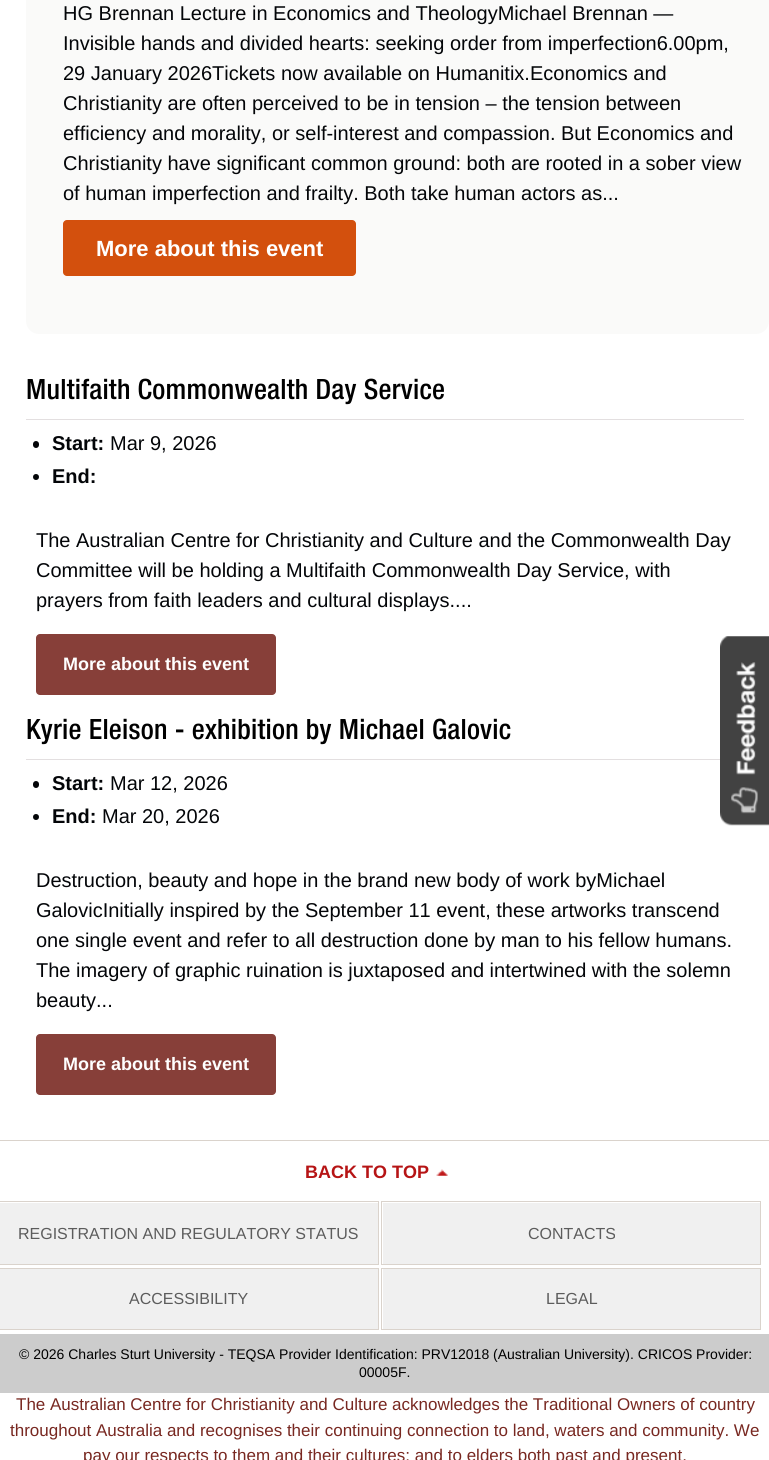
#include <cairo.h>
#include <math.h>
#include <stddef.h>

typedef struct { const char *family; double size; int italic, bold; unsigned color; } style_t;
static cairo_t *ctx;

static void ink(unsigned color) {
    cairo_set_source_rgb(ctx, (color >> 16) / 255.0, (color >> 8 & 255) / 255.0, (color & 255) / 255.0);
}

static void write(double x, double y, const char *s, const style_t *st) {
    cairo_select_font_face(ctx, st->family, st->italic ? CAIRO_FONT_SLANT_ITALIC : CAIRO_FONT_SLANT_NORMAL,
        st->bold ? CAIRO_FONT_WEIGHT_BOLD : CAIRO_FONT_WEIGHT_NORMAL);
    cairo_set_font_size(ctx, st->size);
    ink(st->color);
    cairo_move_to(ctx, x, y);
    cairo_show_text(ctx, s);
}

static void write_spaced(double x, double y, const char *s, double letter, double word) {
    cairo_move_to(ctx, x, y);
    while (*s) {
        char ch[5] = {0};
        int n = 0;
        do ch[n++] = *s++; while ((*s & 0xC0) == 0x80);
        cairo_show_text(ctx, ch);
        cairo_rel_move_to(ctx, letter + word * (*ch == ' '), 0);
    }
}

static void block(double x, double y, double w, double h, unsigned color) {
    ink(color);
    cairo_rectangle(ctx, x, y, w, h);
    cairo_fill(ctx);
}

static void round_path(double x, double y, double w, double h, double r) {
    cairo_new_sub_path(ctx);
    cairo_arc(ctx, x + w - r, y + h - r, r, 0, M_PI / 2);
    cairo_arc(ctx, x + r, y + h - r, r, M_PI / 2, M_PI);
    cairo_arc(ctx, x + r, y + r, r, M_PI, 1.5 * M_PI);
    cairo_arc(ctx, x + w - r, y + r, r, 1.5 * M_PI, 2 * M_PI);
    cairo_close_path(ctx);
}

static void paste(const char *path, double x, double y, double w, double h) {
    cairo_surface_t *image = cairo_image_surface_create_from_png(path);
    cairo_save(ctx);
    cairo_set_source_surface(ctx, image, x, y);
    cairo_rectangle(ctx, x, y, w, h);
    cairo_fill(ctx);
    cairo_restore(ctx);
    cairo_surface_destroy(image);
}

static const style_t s1 = {"Liberation Sans", 20, 0, 0, 0x030508};
static const style_t s2 = {"Liberation Sans", 22, 0, 1, 0xffffff};
static const style_t s3 = {"Liberation Sans", 20, 0, 1, 0x030508};
static const style_t s4 = {"Liberation Sans", 18, 0, 1, 0xffffff};
static const style_t s5 = {"Liberation Sans", 18, 0, 1, 0xb61415};
static const style_t s6 = {"Liberation Sans", 16, 0, 0, 0x5c5c5c};
static const style_t s7 = {"Liberation Sans", 14, 0, 0, 0x000000};
static const style_t s8 = {"Liberation Sans", 17, 0, 0, 0x782821};

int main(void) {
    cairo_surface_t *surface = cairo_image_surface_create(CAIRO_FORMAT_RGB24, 769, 1460);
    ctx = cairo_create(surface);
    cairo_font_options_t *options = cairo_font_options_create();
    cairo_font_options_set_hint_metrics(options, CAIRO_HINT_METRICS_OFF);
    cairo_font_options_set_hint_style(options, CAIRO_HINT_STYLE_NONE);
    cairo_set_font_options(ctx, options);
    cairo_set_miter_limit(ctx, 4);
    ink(0xffffff);
    cairo_paint(ctx);
    ink(0xfafaf9);
    round_path(26, -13, 743, 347, 13);
    cairo_fill(ctx);
    write(63, 20, "HG Brennan Lecture in Economics and TheologyMichael Brennan —", &s1);
    write(63, 50, "Invisible hands and divided hearts: seeking order from imperfection6.00pm,", &s1);
    write(63, 80, "29 January 2026Tickets now available on Humanitix.Economics and", &s1);
    write(63, 110, "Christianity are often perceived to be in tension – the tension between", &s1);
    write(63, 140, "efficiency and morality, or self-interest and compassion. But Economics and", &s1);
    write(63, 170, "Christianity have significant common ground: both are rooted in a sober view", &s1);
    write(63, 200, "of human imperfection and frailty. Both take human actors as...", &s1);
    ink(0xd3500d);
    round_path(63, 220, 293, 56, 4);
    cairo_fill(ctx);
    write(96, 256, "More about this event", &s2);
    block(26, 419, 718, 1, 0xe3dfe0);
    cairo_select_font_face(ctx, "Helvetica Neue Medium", CAIRO_FONT_SLANT_NORMAL, CAIRO_FONT_WEIGHT_NORMAL);
    cairo_set_font_size(ctx, 28);
    ink(0x000000);
    write_spaced(26, 399, "Multifaith Commonwealth Day Service", 0.25, 0);
    ink(0x030508);
    round_path(33, 441, 6, 7, 3);
    cairo_fill(ctx);
    write(52, 450, "Start:", &s3);
    write(110, 450, "Mar 9, 2026", &s1);
    cairo_new_path(ctx);
    cairo_arc(ctx, 36, 477, 3, 0, 2 * M_PI);
    cairo_fill(ctx);
    write(52, 483, "End:", &s3);
    write(36, 547, "The Australian Centre for Christianity and Culture and the Commonwealth Day", &s1);
    write(36, 577, "Committee will be holding a Multifaith Commonwealth Day Service, with", &s1);
    write(36, 607, "prayers from faith leaders and cultural displays....", &s1);
    ink(0x873f39);
    round_path(36, 634, 240, 61, 4);
    cairo_fill(ctx);
    write(63, 670, "More about this event", &s4);
    block(26, 759, 694, 1, 0xe3dfe0);
    cairo_select_font_face(ctx, "Helvetica Neue Medium", CAIRO_FONT_SLANT_NORMAL, CAIRO_FONT_WEIGHT_NORMAL);
    cairo_set_font_size(ctx, 28);
    ink(0x000000);
    write_spaced(26, 739, "Kyrie Eleison - exhibition by Michael Galovic", 0.25, 0);
    ink(0x030508);
    round_path(33, 781, 6, 7, 3);
    cairo_fill(ctx);
    write(52, 790, "Start:", &s3);
    write(110, 790, "Mar 12, 2026", &s1);
    cairo_new_path(ctx);
    cairo_arc(ctx, 36, 817, 3, 0, 2 * M_PI);
    cairo_fill(ctx);
    write(52, 823, "End:", &s3);
    write(102, 823, "Mar 20, 2026", &s1);
    write(36, 887, "Destruction, beauty and hope in the brand new body of work byMichael", &s1);
    write(36, 917, "GalovicInitially inspired by the September 11 event, these artworks transcend", &s1);
    write(36, 947, "one single event and refer to all destruction done by man to his fellow humans.", &s1);
    write(36, 977, "The imagery of graphic ruination is juxtaposed and intertwined with the solemn", &s1);
    write(36, 1007, "beauty...", &s1);
    ink(0x873f39);
    round_path(36, 1034, 240, 61, 4);
    cairo_fill(ctx);
    write(63, 1070, "More about this event", &s4);
    block(0, 1140, 769, 1, 0xdad3cc);
    write(305, 1178, "BACK TO TOP", &s5);
    paste("pic1.png", 436, 1169, 12, 7);
    block(0, 1203, 378, 61, 0xf0f0f0);
    cairo_rectangle(ctx, -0.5, 1201.5, 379, 63);
    ink(0xdad3cc);
    cairo_set_line_width(ctx, 1);
    cairo_stroke(ctx);
    write(18, 1239, "REGISTRATION AND REGULATORY STATUS", &s6);
    block(383, 1203, 377, 61, 0xf0f0f0);
    cairo_rectangle(ctx, 381.5, 1201.5, 379, 63);
    ink(0xdad3cc);
    cairo_stroke(ctx);
    write(528, 1239, "CONTACTS", &s6);
    block(0, 1269, 378, 60, 0xf0f0f0);
    cairo_rectangle(ctx, -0.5, 1268.5, 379, 61);
    ink(0xdad3cc);
    cairo_stroke(ctx);
    write(129, 1304, "ACCESSIBILITY", &s6);
    block(383, 1269, 377, 60, 0xf0f0f0);
    cairo_rectangle(ctx, 381.5, 1268.5, 379, 61);
    ink(0xdad3cc);
    cairo_stroke(ctx);
    write(546, 1304, "LEGAL", &s6);
    block(0, 1334, 769, 59, 0xcccccc);
    write(19, 1359, "© 2026 Charles Sturt University - TEQSA Provider Identification: PRV12018 (Australian University). CRICOS Provider:", &s7);
    write(359, 1377, "00005F.", &s7);
    write(16, 1410, "The Australian Centre for Christianity and Culture acknowledges the Traditional Owners of country", &s8);
    write(10, 1436, "throughout Australia and recognises their continuing connection to land, waters and community. We", &s8);
    write(83, 1461, "pay our respects to them and their cultures; and to elders both past and present.", &s8);
    paste("pic2.png", 720, 636, 49, 190);
    cairo_surface_write_to_png(surface, "screenshot.png");
    cairo_font_options_destroy(options);
    cairo_destroy(ctx);
    cairo_surface_destroy(surface);
    return 0;
}
